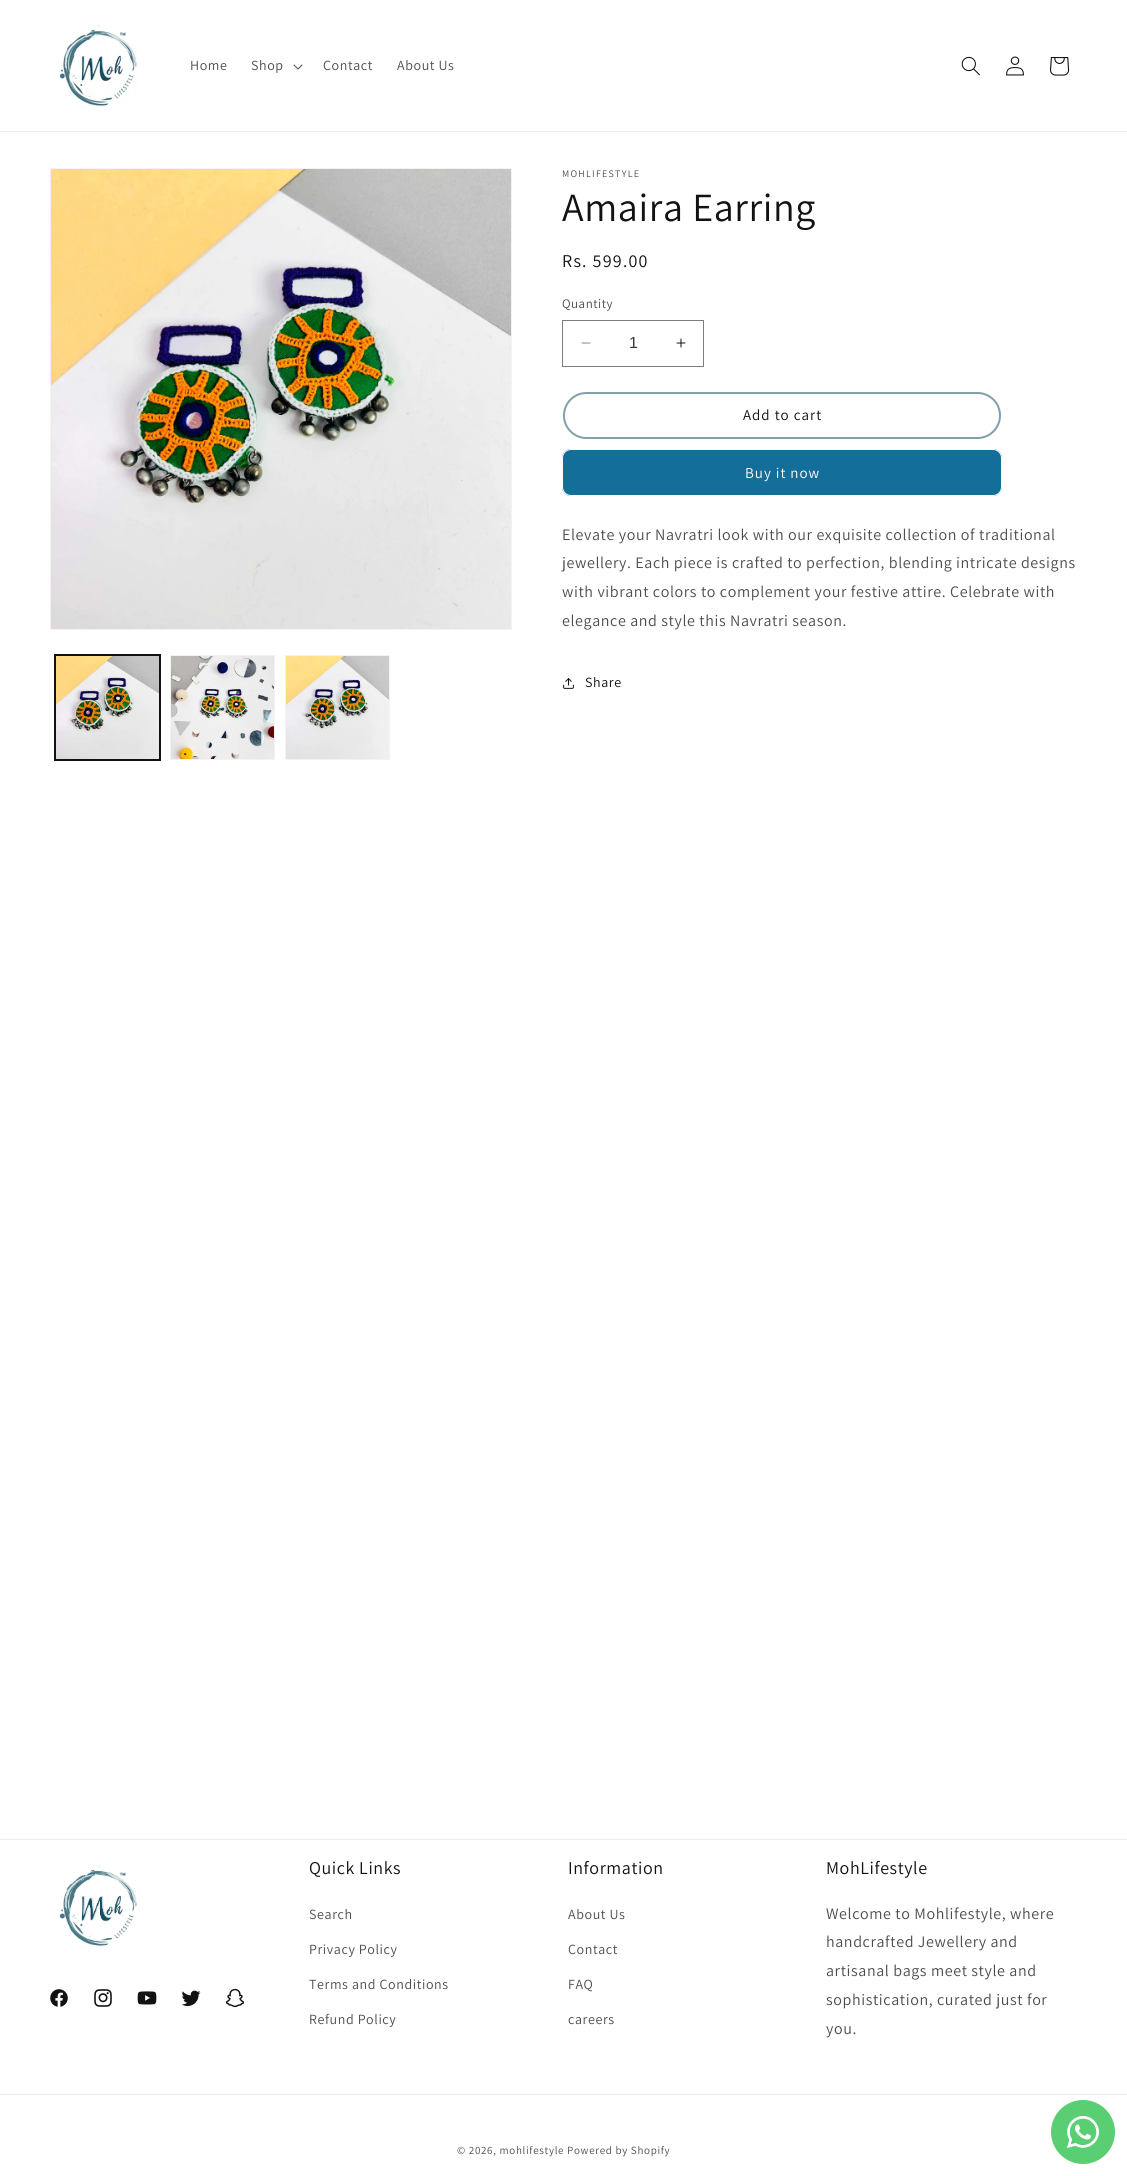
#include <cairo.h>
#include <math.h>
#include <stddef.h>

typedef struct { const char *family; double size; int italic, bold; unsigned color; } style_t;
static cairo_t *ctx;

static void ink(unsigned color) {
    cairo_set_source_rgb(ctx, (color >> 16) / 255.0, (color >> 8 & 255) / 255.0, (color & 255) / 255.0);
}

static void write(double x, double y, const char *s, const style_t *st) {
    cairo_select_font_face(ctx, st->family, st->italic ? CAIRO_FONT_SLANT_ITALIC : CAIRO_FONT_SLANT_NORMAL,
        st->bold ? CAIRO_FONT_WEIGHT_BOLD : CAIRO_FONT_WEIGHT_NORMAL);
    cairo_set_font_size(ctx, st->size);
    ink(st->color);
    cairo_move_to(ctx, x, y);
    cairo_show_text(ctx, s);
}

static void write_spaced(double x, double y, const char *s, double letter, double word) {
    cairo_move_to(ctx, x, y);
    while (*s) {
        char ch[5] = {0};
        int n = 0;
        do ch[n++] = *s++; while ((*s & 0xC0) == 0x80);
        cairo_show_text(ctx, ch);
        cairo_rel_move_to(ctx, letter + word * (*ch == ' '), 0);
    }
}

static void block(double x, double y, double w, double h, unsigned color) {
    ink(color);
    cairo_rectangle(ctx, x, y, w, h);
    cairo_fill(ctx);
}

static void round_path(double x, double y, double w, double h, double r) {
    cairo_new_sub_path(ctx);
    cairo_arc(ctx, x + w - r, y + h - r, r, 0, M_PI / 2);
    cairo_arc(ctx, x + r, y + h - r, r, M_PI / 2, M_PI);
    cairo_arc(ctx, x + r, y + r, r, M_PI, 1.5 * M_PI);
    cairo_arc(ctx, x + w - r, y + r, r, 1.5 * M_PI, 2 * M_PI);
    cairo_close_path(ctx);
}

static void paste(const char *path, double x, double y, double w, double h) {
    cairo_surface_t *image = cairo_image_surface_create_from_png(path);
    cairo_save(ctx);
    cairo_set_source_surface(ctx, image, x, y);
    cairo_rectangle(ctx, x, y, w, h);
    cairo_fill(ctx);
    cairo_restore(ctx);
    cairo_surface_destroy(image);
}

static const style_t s1 = {"Liberation Sans", 16, 0, 0, 0x363636};

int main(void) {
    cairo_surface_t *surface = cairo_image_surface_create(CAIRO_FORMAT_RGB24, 1127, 2176);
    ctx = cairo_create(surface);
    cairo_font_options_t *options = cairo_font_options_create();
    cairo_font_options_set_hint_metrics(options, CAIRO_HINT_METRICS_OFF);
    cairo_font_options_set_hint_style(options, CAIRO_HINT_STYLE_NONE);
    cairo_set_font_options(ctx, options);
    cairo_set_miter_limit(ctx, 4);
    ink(0xffffff);
    cairo_paint(ctx);
    block(0, 131, 1127, 1, 0xececec);
    paste("pic1.png", 58, 25, 80, 83);
    cairo_select_font_face(ctx, "Assistant", CAIRO_FONT_SLANT_NORMAL, CAIRO_FONT_WEIGHT_NORMAL);
    cairo_set_font_size(ctx, 14);
    ink(0x4d4d4d);
    write_spaced(190, 70, "Home", 0.6, 0);
    write_spaced(251, 70, "Shop", 0.6, 0);
    paste("pic2.png", 293, 64, 10, 6);
    write_spaced(323, 70, "Contact", 0.6, 0);
    write_spaced(397, 70, "About Us", 0.6, 0);
    paste("pic3.png", 961, 56, 19, 20);
    paste("pic4.png", 1006, 56, 18, 20);
    paste("pic5.png", 1050, 57, 20, 19);
    cairo_rectangle(ctx, 50.5, 168.5, 461, 461);
    ink(0xf3f3f3);
    cairo_set_line_width(ctx, 1);
    cairo_stroke(ctx);
    paste("pic6.png", 51, 169, 460, 460);
    cairo_rectangle(ctx, 54.5, 654.5, 106, 106);
    ink(0x121212);
    cairo_stroke(ctx);
    cairo_rectangle(ctx, 55.5, 655.5, 104, 104);
    cairo_stroke(ctx);
    paste("pic7.png", 56, 656, 103, 103);
    cairo_rectangle(ctx, 170.5, 655.5, 104, 104);
    ink(0xf3f3f3);
    cairo_stroke(ctx);
    paste("pic8.png", 171, 656, 103, 103);
    cairo_rectangle(ctx, 285.5, 655.5, 104, 104);
    cairo_stroke(ctx);
    paste("pic9.png", 286, 656, 103, 103);
    cairo_set_font_size(ctx, 10);
    ink(0x4d4d4d);
    write_spaced(562, 177, "MOHLIFESTYLE", 1.25, 0);
    cairo_set_font_size(ctx, 40);
    ink(0x121212);
    write_spaced(562, 221, "Amaira Earring", 0.6, 0);
    cairo_set_font_size(ctx, 18);
    write_spaced(562, 267, "Rs. 599.00", 1.25, 0);
    cairo_set_font_size(ctx, 13);
    ink(0x4d4d4d);
    write_spaced(562, 308, "Quantity", 0.5, 0);
    paste("pic10.png", 581, 342, 10, 2);
    paste("pic11.png", 676, 338, 10, 10);
    cairo_rectangle(ctx, 562.5, 320.5, 141, 46);
    ink(0x7d7d7d);
    cairo_stroke(ctx);
    write(629, 348, "1", &s1);
    round_path(564, 393, 436, 45, 22.5);
    ink(0x80a1ab);
    cairo_set_line_width(ctx, 2);
    cairo_stroke(ctx);
    cairo_select_font_face(ctx, "Assistant", CAIRO_FONT_SLANT_NORMAL, CAIRO_FONT_WEIGHT_NORMAL);
    cairo_set_font_size(ctx, 15);
    ink(0x121212);
    write_spaced(743, 420, "Add to cart", 1, 0);
    ink(0x136f99);
    round_path(562, 449, 440, 47, 9);
    cairo_fill(ctx);
    round_path(562.5, 449.5, 439, 46, 8.5);
    ink(0xffffff);
    cairo_set_line_width(ctx, 1);
    cairo_stroke(ctx);
    write_spaced(745, 478, "Buy it now", 1, 0);
    cairo_set_font_size(ctx, 16);
    ink(0x4d4d4d);
    write_spaced(562, 540, "Elevate your Navratri look with our exquisite collection of traditional", 0.6, 0);
    write_spaced(562, 568, "jewellery. Each piece is crafted to perfection, blending intricate designs", 0.6, 0);
    write_spaced(562, 597, "with vibrant colors to complement your festive attire. Celebrate with", 0.6, 0);
    write_spaced(562, 626, "elegance and style this Navratri season.", 0.6, 0);
    paste("pic12.png", 563, 678, 11, 11);
    cairo_set_font_size(ctx, 14);
    ink(0x121212);
    write_spaced(585, 687, "Share", 0.6, 0);
    block(0, 1839, 1127, 1, 0xececec);
    paste("pic13.png", 59, 1865, 78, 81);
    paste("pic14.png", 50, 1989, 18, 18);
    paste("pic15.png", 94, 1989, 18, 18);
    paste("pic16.png", 137, 1991, 20, 14);
    paste("pic17.png", 181, 1990, 20, 16);
    paste("pic18.png", 225, 1988, 20, 20);
    cairo_set_font_size(ctx, 18);
    ink(0x121212);
    write_spaced(309, 1874, "Quick Links", 0.6, 0);
    cairo_set_font_size(ctx, 14);
    ink(0x4d4d4d);
    write_spaced(309, 1919, "Search", 0.6, 0);
    write_spaced(309, 1954, "Privacy Policy", 0.6, 0);
    write_spaced(309, 1989, "Terms and Conditions", 0.6, 0);
    write_spaced(309, 2024, "Refund Policy", 0.6, 0);
    cairo_set_font_size(ctx, 18);
    ink(0x121212);
    write_spaced(568, 1874, "Information", 0.6, 0);
    cairo_set_font_size(ctx, 14);
    ink(0x4d4d4d);
    write_spaced(568, 1919, "About Us", 0.6, 0);
    write_spaced(568, 1954, "Contact", 0.6, 0);
    write_spaced(568, 1989, "FAQ", 0.6, 0);
    write_spaced(568, 2024, "careers", 0.6, 0);
    cairo_set_font_size(ctx, 18);
    ink(0x121212);
    write_spaced(826, 1874, "MohLifestyle", 0.6, 0);
    cairo_set_font_size(ctx, 16);
    ink(0x4d4d4d);
    write_spaced(826, 1919, "Welcome to Mohlifestyle, where", 0.6, 0);
    write_spaced(826, 1947, "handcrafted Jewellery and", 0.6, 0);
    write_spaced(826, 1976, "artisanal bags meet style and", 0.6, 0);
    write_spaced(826, 2005, "sophistication, curated just for", 0.6, 0);
    write_spaced(826, 2034, "you.", 0.6, 0);
    block(0, 2094, 1127, 1, 0xececec);
    cairo_set_font_size(ctx, 11);
    ink(0x4d4d4d);
    write_spaced(457, 2154, "© 2026, mohlifestyle Powered by Shopify", 0.7, 0);
    ink(0x59ce72);
    cairo_new_path(ctx);
    cairo_arc(ctx, 1083, 2132, 32, 0, 2 * M_PI);
    cairo_fill(ctx);
    paste("pic19.png", 1067, 2116, 32, 32);
    cairo_surface_write_to_png(surface, "screenshot.png");
    cairo_font_options_destroy(options);
    cairo_destroy(ctx);
    cairo_surface_destroy(surface);
    return 0;
}
